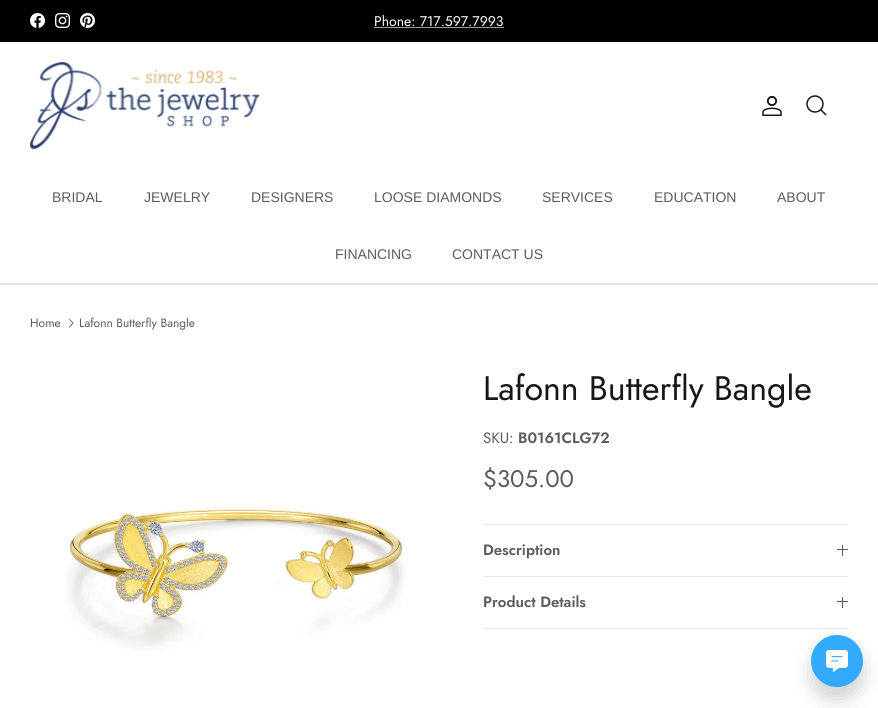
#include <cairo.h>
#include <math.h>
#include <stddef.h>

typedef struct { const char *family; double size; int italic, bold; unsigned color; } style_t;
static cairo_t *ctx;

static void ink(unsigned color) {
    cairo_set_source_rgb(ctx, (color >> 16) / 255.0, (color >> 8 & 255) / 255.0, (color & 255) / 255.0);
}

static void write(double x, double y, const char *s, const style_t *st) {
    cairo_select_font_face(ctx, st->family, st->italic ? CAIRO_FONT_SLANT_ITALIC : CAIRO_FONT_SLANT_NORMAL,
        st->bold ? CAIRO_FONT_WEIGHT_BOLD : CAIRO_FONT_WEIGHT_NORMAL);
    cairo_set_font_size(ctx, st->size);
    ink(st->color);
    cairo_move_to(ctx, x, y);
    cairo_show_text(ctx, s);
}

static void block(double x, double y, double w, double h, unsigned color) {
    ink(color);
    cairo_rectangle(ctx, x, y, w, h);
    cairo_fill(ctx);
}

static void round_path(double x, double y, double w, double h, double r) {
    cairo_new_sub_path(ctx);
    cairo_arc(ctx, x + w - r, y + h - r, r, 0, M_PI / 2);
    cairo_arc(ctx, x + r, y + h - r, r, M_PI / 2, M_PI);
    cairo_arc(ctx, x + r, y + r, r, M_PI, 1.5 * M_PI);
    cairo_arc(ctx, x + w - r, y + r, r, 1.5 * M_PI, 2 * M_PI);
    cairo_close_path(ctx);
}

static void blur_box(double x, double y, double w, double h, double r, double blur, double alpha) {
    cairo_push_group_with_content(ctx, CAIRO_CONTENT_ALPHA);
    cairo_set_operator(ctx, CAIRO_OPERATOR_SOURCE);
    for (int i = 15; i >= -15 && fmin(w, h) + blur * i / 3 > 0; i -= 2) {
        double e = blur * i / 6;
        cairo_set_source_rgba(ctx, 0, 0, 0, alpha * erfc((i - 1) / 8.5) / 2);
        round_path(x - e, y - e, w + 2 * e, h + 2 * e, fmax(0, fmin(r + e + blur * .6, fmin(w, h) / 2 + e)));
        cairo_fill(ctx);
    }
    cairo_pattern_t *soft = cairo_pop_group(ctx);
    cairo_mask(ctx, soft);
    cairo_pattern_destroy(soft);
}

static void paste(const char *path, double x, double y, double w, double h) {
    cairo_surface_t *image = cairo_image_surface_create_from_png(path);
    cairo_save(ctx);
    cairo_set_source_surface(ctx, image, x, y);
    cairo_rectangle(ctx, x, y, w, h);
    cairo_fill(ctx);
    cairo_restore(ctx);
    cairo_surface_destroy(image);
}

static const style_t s1 = {"Jost", 14, 0, 0, 0xffffff};
static const style_t s2 = {"Liberation Sans", 14, 0, 0, 0x5c5c5c};
static const style_t s3 = {"Jost", 12, 0, 0, 0x5c5c5c};
static const style_t s4 = {"Jost", 34, 0, 0, 0x171717};
static const style_t s5 = {"Jost", 15, 0, 0, 0x5c5c5c};
static const style_t s6 = {"Jost SemiBold", 15, 0, 0, 0x5c5c5c};
static const style_t s7 = {"Jost", 24, 0, 0, 0x5c5c5c};

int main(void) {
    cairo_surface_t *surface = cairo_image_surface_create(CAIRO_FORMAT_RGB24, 878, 708);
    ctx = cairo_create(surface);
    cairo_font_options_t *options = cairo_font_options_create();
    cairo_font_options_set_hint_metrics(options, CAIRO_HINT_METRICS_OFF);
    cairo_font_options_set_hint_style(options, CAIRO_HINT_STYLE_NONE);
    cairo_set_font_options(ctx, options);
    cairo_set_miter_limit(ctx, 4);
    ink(0xffffff);
    cairo_paint(ctx);
    block(0, 0, 878, 42, 0x000000);
    paste("pic1.png", 30, 13, 15, 15);
    paste("pic2.png", 55, 13, 15, 15);
    paste("pic3.png", 80, 13, 15, 15);
    write(374, 26, "Phone: 717.597.7993", &s1);
    block(374, 27, 130, 1, 0x999999);
    block(0, 283, 878, 2, 0xdfe3e8);
    paste("pic4.png", 30, 61, 230, 89);
    paste("pic5.png", 762, 96, 20, 20);
    cairo_arc(ctx, 815, 104, 8, 0, 2 * M_PI);
    ink(0x171717);
    cairo_set_line_width(ctx, 1.5);
    cairo_stroke(ctx);
    cairo_new_path(ctx);
    cairo_move_to(ctx, 821, 110);
    cairo_line_to(ctx, 825.5, 114.5);
    cairo_set_line_cap(ctx, CAIRO_LINE_CAP_SQUARE);
    cairo_stroke(ctx);
    write(52, 202, "BRIDAL", &s2);
    write(144, 202, "JEWELRY", &s2);
    write(251, 202, "DESIGNERS", &s2);
    write(374, 202, "LOOSE DIAMONDS", &s2);
    write(542, 202, "SERVICES", &s2);
    write(654, 202, "EDUCATION", &s2);
    write(777, 202, "ABOUT", &s2);
    write(335, 259, "FINANCING", &s2);
    write(452, 259, "CONTACT US", &s2);
    write(30, 327, "Home", &s3);
    cairo_new_path(ctx);
    cairo_move_to(ctx, 69.5, 327);
    cairo_line_to(ctx, 73, 323);
    cairo_line_to(ctx, 69.5, 319.5);
    cairo_set_line_width(ctx, 0.9);
    cairo_set_line_cap(ctx, CAIRO_LINE_CAP_ROUND);
    cairo_set_line_join(ctx, CAIRO_LINE_JOIN_ROUND);
    cairo_stroke(ctx);
    write(79, 327, "Lafonn Butterfly Bangle", &s3);
    paste("pic6.png", 66, 507, 341, 145);
    write(483, 400, "Lafonn Butterfly Bangle", &s4);
    write(483, 443, "SKU:", &s5);
    write(518, 443, "B0161CLG72", &s6);
    write(483, 487, "$305.00", &s7);
    block(483, 524, 365, 1, 0xe7e7e7);
    block(483, 576, 365, 1, 0xe7e7e7);
    write(483, 555, "Description", &s6);
    block(842, 545, 1, 11, 0x5c5c5c);
    block(837, 549, 11, 1, 0x5c5c5c);
    block(483, 628, 365, 1, 0xe7e7e7);
    write(483, 607, "Product Details", &s6);
    block(842, 597, 1, 11, 0x5c5c5c);
    block(837, 601, 11, 1, 0x5c5c5c);
    ink(0x000000);
    blur_box(811, 647, 52, 52, 26, 9.5, 0.18);
    ink(0x33aafc);
    cairo_arc(ctx, 837, 661, 26, 0, 2 * M_PI);
    cairo_fill(ctx);
    paste("pic7.png", 826, 650, 22, 22);
    cairo_surface_write_to_png(surface, "screenshot.png");
    cairo_font_options_destroy(options);
    cairo_destroy(ctx);
    cairo_surface_destroy(surface);
    return 0;
}
